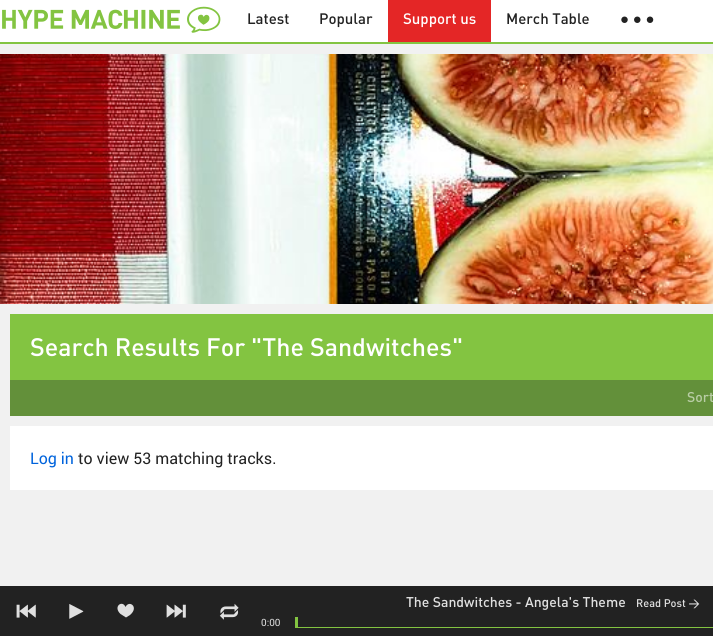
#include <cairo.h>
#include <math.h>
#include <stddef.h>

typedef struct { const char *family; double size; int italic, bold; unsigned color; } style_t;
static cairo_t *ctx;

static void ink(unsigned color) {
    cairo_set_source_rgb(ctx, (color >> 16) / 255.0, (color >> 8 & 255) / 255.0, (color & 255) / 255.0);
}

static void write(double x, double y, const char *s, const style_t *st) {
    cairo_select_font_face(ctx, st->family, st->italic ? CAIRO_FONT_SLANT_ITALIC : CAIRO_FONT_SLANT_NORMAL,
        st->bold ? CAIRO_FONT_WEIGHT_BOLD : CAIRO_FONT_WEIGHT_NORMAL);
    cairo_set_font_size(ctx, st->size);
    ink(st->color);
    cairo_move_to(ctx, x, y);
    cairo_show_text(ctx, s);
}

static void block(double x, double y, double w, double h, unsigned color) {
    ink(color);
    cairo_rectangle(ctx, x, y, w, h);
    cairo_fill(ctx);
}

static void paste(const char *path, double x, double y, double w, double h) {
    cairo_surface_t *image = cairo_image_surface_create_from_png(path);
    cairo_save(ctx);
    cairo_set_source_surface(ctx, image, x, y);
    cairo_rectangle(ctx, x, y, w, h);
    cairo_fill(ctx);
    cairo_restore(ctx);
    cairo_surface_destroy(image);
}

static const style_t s1 = {"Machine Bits", 38, 0, 0, 0x83c441};
static const style_t s2 = {"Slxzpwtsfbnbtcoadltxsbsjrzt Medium", 15, 0, 0, 0x222222};
static const style_t s3 = {"Slxzpwtsfbnbtcoadltxsbsjrzt Medium", 15, 0, 0, 0xffffff};
static const style_t s4 = {"Liberation Serif", 15, 0, 1, 0x222222};
static const style_t s5 = {"Slxzpwtsfbnbtcoadltxsbsjrzt Medium", 25, 0, 0, 0xffffff};
static const style_t s6 = {"Slxzpwtsfbnbtcoadltxsbsjrzt Medium", 14, 0, 0, 0xb9cda5};
static const style_t s7 = {"Roboto", 16, 0, 0, 0x0063dc};
static const style_t s8 = {"Roboto", 16, 0, 0, 0x222222};
static const style_t s9 = {"Slxzpwtsfbnbtcoadltxsbsjrzt Medium", 14, 0, 0, 0xe0e0e0};
static const style_t s10 = {"Slxzpwtsfbnbtcoadltxsbsjrzt Medium", 11, 0, 0, 0xe0e0e0};
static const style_t s11 = {"Roboto", 10, 0, 0, 0xe0e0e0};

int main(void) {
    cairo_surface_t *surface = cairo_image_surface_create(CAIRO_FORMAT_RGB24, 713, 636);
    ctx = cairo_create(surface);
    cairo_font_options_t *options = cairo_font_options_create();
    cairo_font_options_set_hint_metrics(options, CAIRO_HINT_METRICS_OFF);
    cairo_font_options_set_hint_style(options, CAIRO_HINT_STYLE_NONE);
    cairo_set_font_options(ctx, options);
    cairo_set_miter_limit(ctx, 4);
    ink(0xf1f1f1);
    cairo_paint(ctx);
    block(0, 0, 713, 42, 0xffffff);
    block(0, 42, 713, 2, 0x83c441);
    write(0, 28, "1", &s1);
    write(247, 24, "Latest", &s2);
    write(319, 24, "Popular", &s2);
    block(388, 0, 103, 42, 0xe42626);
    write(403, 24, "Support us", &s3);
    write(506, 24, "Merch Table", &s2);
    write(620, 24, "● ● ●", &s4);
    paste("pic1.png", 0, 54, 713, 250);
    block(10, 314, 703, 66, 0x83c441);
    write(30, 356, "Search Results For \"The Sandwitches\"", &s5);
    block(10, 380, 703, 36, 0x63903a);
    write(687, 402, "Sort", &s6);
    block(10, 426, 703, 64, 0xffffff);
    write(30, 464, "Log in", &s7);
    write(78, 464, "to view 53 matching tracks.", &s8);
    block(0, 586, 713, 50, 0x222222);
    paste("pic2.png", 16, 604, 20, 14);
    paste("pic3.png", 69, 604, 15, 15);
    ink(0xe0e0e0);
    cairo_new_path(ctx);
    cairo_move_to(ctx, 125.5, 607);
    cairo_curve_to(ctx, 129, 599.5, 139.5, 607, 130, 615);
    cairo_line_to(ctx, 126, 617.5);
    cairo_line_to(ctx, 120.5, 614);
    cairo_curve_to(ctx, 112.5, 606.5, 122.5, 599.5, 125.5, 607);
    cairo_close_path(ctx);
    cairo_fill(ctx);
    paste("pic4.png", 166, 604, 20, 14);
    paste("pic5.png", 219, 603, 20, 17);
    write(406, 607, "The Sandwitches - Angela's Theme", &s9);
    write(636, 607, "Read Post →", &s10);
    write(261, 626, "0:00", &s11);
    block(295, 627, 418, 1, 0x83c441);
    block(295, 617, 3, 10, 0x83c441);
    cairo_surface_write_to_png(surface, "screenshot.png");
    cairo_font_options_destroy(options);
    cairo_destroy(ctx);
    cairo_surface_destroy(surface);
    return 0;
}
